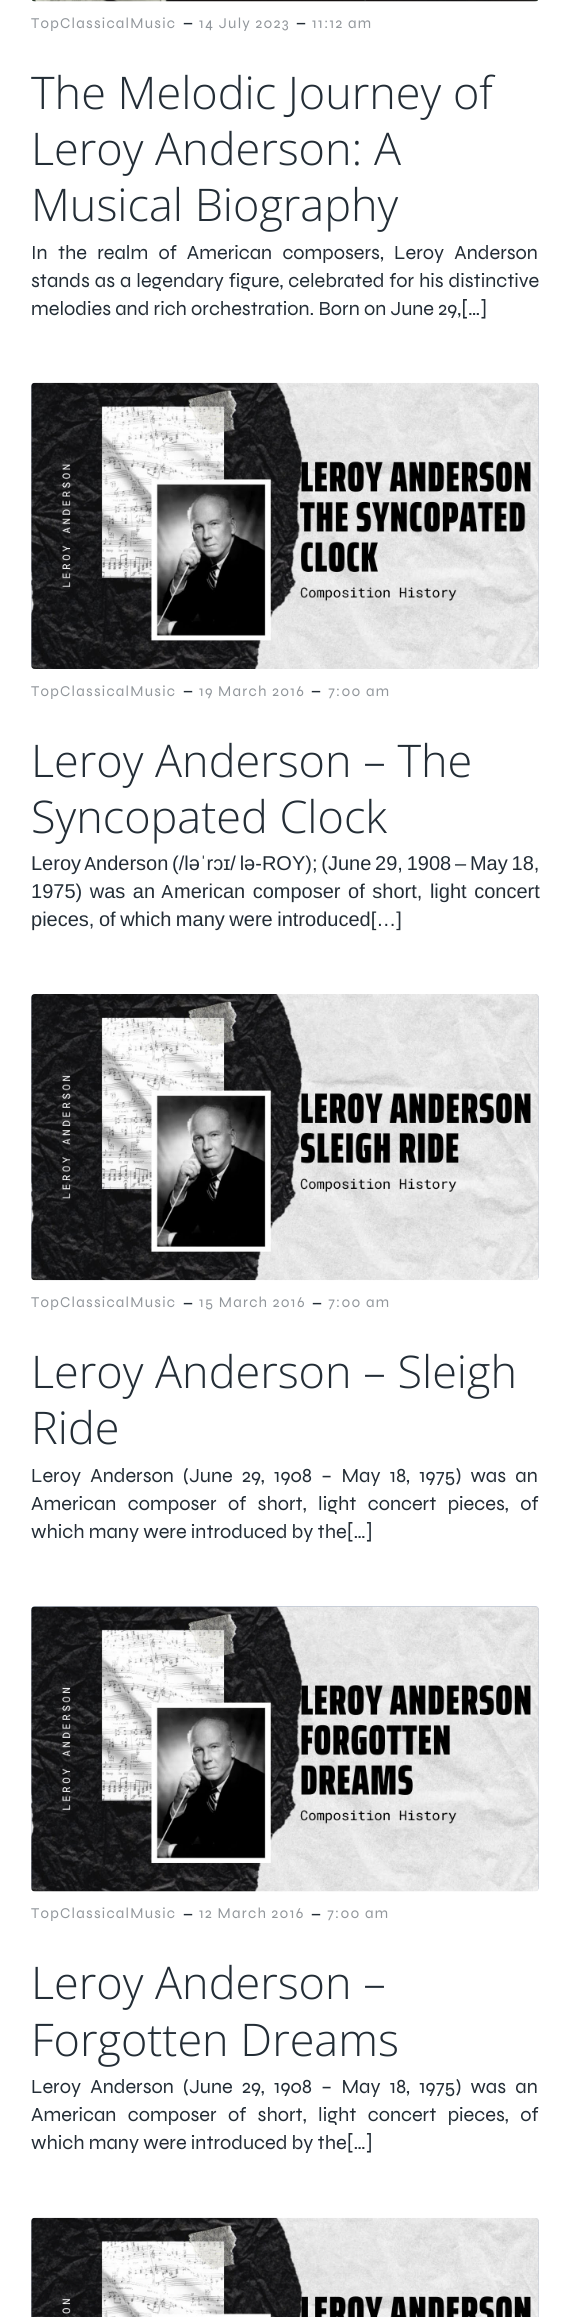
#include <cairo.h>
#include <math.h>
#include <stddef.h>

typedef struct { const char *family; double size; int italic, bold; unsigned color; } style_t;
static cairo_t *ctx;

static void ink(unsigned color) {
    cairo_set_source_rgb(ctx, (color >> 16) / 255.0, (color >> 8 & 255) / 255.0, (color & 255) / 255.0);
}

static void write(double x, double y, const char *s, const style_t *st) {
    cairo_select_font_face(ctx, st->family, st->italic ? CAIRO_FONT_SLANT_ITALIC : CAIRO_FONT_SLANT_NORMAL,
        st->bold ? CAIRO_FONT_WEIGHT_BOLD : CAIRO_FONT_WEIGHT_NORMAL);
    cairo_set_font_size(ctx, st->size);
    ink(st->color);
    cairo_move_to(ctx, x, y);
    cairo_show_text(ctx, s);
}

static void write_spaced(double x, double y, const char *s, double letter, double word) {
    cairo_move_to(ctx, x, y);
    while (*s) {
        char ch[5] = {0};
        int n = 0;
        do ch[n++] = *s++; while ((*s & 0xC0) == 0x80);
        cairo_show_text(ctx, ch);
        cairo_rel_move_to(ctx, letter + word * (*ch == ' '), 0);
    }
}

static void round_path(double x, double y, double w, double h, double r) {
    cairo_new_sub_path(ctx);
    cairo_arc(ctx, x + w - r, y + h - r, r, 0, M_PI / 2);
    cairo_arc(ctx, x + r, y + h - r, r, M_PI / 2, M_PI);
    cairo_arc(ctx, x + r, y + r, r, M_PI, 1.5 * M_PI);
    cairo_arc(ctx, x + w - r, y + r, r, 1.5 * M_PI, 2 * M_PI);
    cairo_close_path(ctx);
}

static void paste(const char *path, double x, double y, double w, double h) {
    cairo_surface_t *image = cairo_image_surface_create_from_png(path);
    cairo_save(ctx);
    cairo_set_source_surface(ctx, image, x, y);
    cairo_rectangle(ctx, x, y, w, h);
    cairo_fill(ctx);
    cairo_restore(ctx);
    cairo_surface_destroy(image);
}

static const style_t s1 = {"Open Sans", 20, 0, 0, 0x232d36};
static const style_t s2 = {"Open Sans Light", 45, 0, 0, 0x232d36};
static const style_t s3 = {"Syne", 20, 0, 0, 0x232d36};
static const style_t s4 = {"Liberation Sans", 20, 0, 0, 0x232d36};

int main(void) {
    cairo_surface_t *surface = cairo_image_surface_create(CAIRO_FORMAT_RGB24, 569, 2317);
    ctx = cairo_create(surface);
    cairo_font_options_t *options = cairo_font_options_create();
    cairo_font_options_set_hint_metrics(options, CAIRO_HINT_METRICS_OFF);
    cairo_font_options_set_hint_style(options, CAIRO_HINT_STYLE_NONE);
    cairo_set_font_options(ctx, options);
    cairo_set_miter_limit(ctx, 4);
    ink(0xffffff);
    cairo_paint(ctx);
    paste("pic1.png", 32, 0, 506, 2);
    cairo_select_font_face(ctx, "Syne", CAIRO_FONT_SLANT_NORMAL, CAIRO_FONT_WEIGHT_NORMAL);
    cairo_set_font_size(ctx, 15);
    ink(0x91969b);
    write_spaced(31, 28, "TopClassicalMusic", 1.25, 0);
    write(183, 29, "–", &s1);
    cairo_select_font_face(ctx, "Syne", CAIRO_FONT_SLANT_NORMAL, CAIRO_FONT_WEIGHT_NORMAL);
    cairo_set_font_size(ctx, 15);
    ink(0x91969b);
    write_spaced(199, 28, "14 July 2023", 1.25, 0);
    write(296, 29, "–", &s1);
    cairo_select_font_face(ctx, "Syne", CAIRO_FONT_SLANT_NORMAL, CAIRO_FONT_WEIGHT_NORMAL);
    cairo_set_font_size(ctx, 15);
    ink(0x91969b);
    write_spaced(312, 28, "11:12 am", 1.25, 0);
    write(31, 109, "The Melodic Journey of", &s2);
    write(31, 165, "Leroy Anderson: A", &s2);
    write(31, 221, "Musical Biography", &s2);
    cairo_select_font_face(ctx, "Syne", CAIRO_FONT_SLANT_NORMAL, CAIRO_FONT_WEIGHT_NORMAL);
    cairo_set_font_size(ctx, 20);
    write_spaced(31, 259, "In the realm of American composers, Leroy Anderson", 0, 6);
    write_spaced(31, 287, "stands as a legendary figure, celebrated for his distinctive", 0, 0.75);
    write(31, 315, "melodies and rich orchestration. Born on June 29,[…]", &s3);
    ink(0xbec5d3);
    round_path(31, 383, 508, 286, 4);
    cairo_fill(ctx);
    paste("pic2.png", 31, 382, 508, 287);
    cairo_set_font_size(ctx, 15);
    ink(0x91969b);
    write_spaced(31, 696, "TopClassicalMusic", 1.25, 0);
    write(183, 697, "–", &s1);
    cairo_select_font_face(ctx, "Syne", CAIRO_FONT_SLANT_NORMAL, CAIRO_FONT_WEIGHT_NORMAL);
    cairo_set_font_size(ctx, 15);
    ink(0x91969b);
    write_spaced(199, 696, "19 March 2016", 1.25, 0);
    write(311, 697, "–", &s1);
    cairo_select_font_face(ctx, "Syne", CAIRO_FONT_SLANT_NORMAL, CAIRO_FONT_WEIGHT_NORMAL);
    cairo_set_font_size(ctx, 15);
    ink(0x91969b);
    write_spaced(328, 696, "7:00 am", 1.25, 0);
    write(31, 777, "Leroy Anderson – The", &s2);
    write(31, 833, "Syncopated Clock", &s2);
    write(31, 870, "Leroy", &s4);
    write(84, 870, "A", &s3);
    cairo_select_font_face(ctx, "Liberation Sans", CAIRO_FONT_SLANT_NORMAL, CAIRO_FONT_WEIGHT_NORMAL);
    write_spaced(96, 870, "nderson (/ləˈrɔɪ/ lə-ROY); (June 29, 1908 – May 18,", 0, -1.75);
    write_spaced(31, 898, "1975) was an", 0, 2);
    write(161, 898, "A", &s3);
    cairo_select_font_face(ctx, "Liberation Sans", CAIRO_FONT_SLANT_NORMAL, CAIRO_FONT_WEIGHT_NORMAL);
    write_spaced(174, 898, "merican composer of short, light concert", 0, 2);
    write_spaced(31, 926, "pieces, of which many were introduced[…]", 0, -1);
    ink(0xbec5d3);
    round_path(31, 994, 508, 286, 4);
    cairo_fill(ctx);
    paste("pic3.png", 31, 994, 508, 287);
    cairo_select_font_face(ctx, "Syne", CAIRO_FONT_SLANT_NORMAL, CAIRO_FONT_WEIGHT_NORMAL);
    cairo_set_font_size(ctx, 15);
    ink(0x91969b);
    write_spaced(31, 1307, "TopClassicalMusic", 1.25, 0);
    write(183, 1309, "–", &s1);
    cairo_select_font_face(ctx, "Syne", CAIRO_FONT_SLANT_NORMAL, CAIRO_FONT_WEIGHT_NORMAL);
    cairo_set_font_size(ctx, 15);
    ink(0x91969b);
    write_spaced(199, 1307, "15 March 2016", 1.25, 0);
    write(312, 1309, "–", &s1);
    cairo_select_font_face(ctx, "Syne", CAIRO_FONT_SLANT_NORMAL, CAIRO_FONT_WEIGHT_NORMAL);
    cairo_set_font_size(ctx, 15);
    ink(0x91969b);
    write_spaced(328, 1307, "7:00 am", 1.25, 0);
    write(31, 1388, "Leroy Anderson – Sleigh", &s2);
    write(31, 1444, "Ride", &s2);
    cairo_select_font_face(ctx, "Syne", CAIRO_FONT_SLANT_NORMAL, CAIRO_FONT_WEIGHT_NORMAL);
    cairo_set_font_size(ctx, 20);
    write_spaced(31, 1482, "Leroy Anderson (June 29, 1908 – May 18, 1975) was an", 0, 5);
    write_spaced(31, 1510, "American composer of short, light concert pieces, of", 0, 7.25);
    write(31, 1538, "which many were introduced by the[…]", &s3);
    ink(0xbec5d3);
    round_path(31, 1606, 508, 285, 4);
    cairo_fill(ctx);
    paste("pic4.png", 31, 1606, 508, 286);
    cairo_set_font_size(ctx, 15);
    ink(0x91969b);
    write_spaced(31, 1918, "TopClassicalMusic", 1.25, 0);
    write(183, 1920, "–", &s1);
    cairo_select_font_face(ctx, "Syne", CAIRO_FONT_SLANT_NORMAL, CAIRO_FONT_WEIGHT_NORMAL);
    cairo_set_font_size(ctx, 15);
    ink(0x91969b);
    write_spaced(199, 1918, "12 March 2016", 1.25, 0);
    write(311, 1920, "–", &s1);
    cairo_select_font_face(ctx, "Syne", CAIRO_FONT_SLANT_NORMAL, CAIRO_FONT_WEIGHT_NORMAL);
    cairo_set_font_size(ctx, 15);
    ink(0x91969b);
    write_spaced(327, 1918, "7:00 am", 1.25, 0);
    write(31, 1999, "Leroy Anderson –", &s2);
    write(31, 2056, "Forgotten Dreams", &s2);
    cairo_select_font_face(ctx, "Syne", CAIRO_FONT_SLANT_NORMAL, CAIRO_FONT_WEIGHT_NORMAL);
    cairo_set_font_size(ctx, 20);
    write_spaced(31, 2093, "Leroy Anderson (June 29, 1908 – May 18, 1975) was an", 0, 5);
    write_spaced(31, 2121, "American composer of short, light concert pieces, of", 0, 7.25);
    write(31, 2149, "which many were introduced by the[…]", &s3);
    ink(0xbec5d3);
    round_path(31, 2218, 508, 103, 4);
    cairo_fill(ctx);
    paste("pic5.png", 31, 2217, 508, 100);
    cairo_surface_write_to_png(surface, "screenshot.png");
    cairo_font_options_destroy(options);
    cairo_destroy(ctx);
    cairo_surface_destroy(surface);
    return 0;
}
